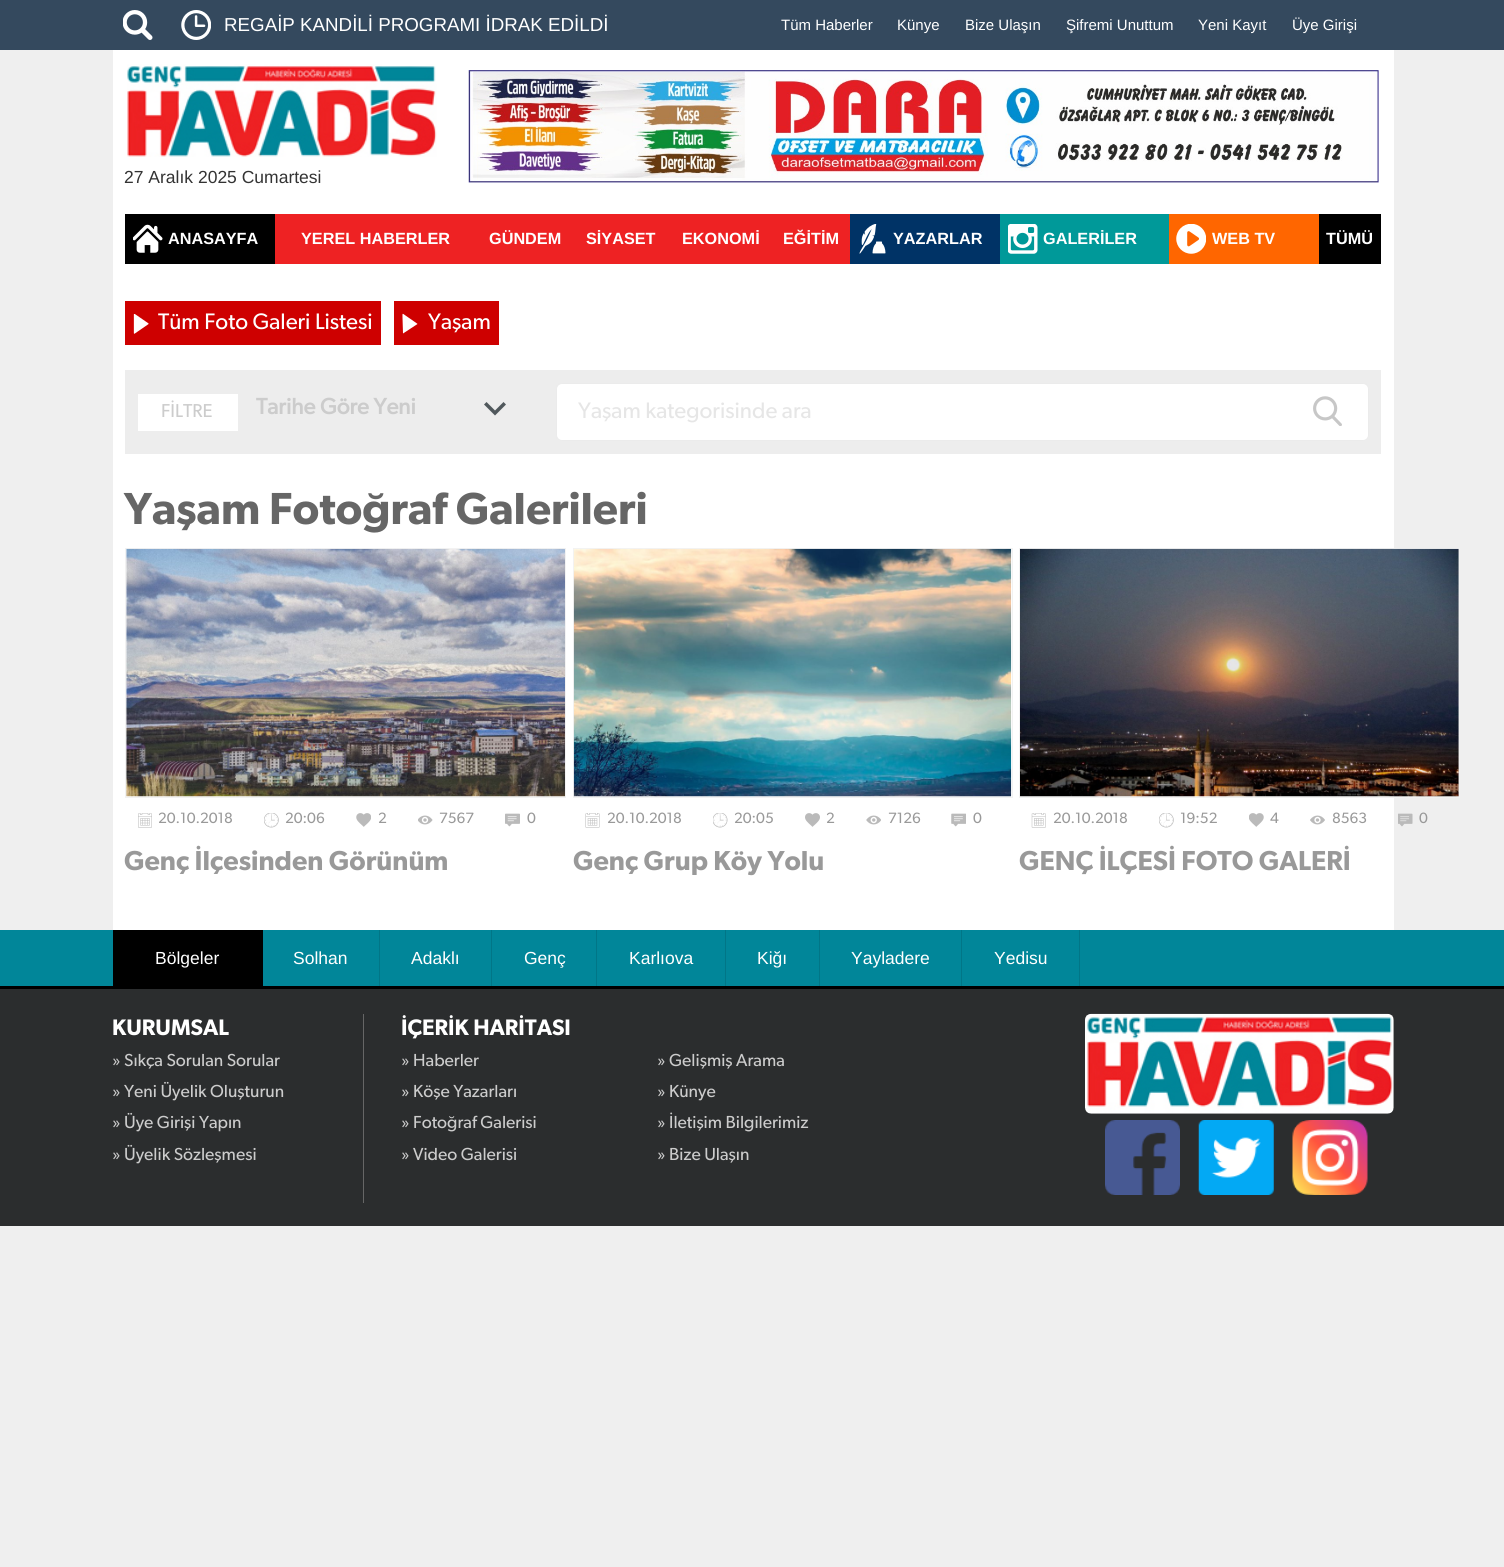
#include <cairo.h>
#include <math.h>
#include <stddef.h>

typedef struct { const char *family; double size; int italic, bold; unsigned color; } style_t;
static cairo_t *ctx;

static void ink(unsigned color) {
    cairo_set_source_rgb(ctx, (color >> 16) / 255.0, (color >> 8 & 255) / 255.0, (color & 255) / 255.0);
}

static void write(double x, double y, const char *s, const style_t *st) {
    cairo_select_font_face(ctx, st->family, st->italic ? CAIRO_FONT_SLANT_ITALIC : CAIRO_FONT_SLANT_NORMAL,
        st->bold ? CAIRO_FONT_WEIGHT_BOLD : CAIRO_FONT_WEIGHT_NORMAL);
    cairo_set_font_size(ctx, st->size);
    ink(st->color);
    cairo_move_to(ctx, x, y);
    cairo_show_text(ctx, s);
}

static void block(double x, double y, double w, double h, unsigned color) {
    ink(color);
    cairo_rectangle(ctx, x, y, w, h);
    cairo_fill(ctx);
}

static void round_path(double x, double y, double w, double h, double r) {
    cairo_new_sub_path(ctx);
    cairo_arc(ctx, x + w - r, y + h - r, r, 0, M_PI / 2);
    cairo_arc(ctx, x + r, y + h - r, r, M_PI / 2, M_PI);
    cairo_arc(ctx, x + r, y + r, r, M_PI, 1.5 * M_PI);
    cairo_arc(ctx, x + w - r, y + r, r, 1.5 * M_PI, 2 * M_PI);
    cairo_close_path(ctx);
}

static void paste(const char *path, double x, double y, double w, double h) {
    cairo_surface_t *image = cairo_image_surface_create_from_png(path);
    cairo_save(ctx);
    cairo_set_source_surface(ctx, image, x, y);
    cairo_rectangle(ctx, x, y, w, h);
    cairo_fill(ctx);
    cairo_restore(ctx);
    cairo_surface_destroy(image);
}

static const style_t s1 = {"Liberation Sans", 18.75, 0, 0, 0xffffff};
static const style_t s2 = {"Liberation Sans", 15, 0, 0, 0xffffff};
static const style_t s3 = {"Liberation Sans", 17.5, 0, 0, 0x333333};
static const style_t s4 = {"Liberation Sans", 16.25, 0, 1, 0xffffff};
static const style_t s5 = {"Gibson", 22.5, 0, 0, 0xffffff};
static const style_t s6 = {"Gibson", 18.75, 0, 0, 0xcccccc};
static const style_t s7 = {"Gibson", 22.5, 0, 1, 0xcccccc};
static const style_t s8 = {"Gibson", 22.5, 0, 0, 0xe6e6e6};
static const style_t s9 = {"Gibson SemiBold", 45, 0, 0, 0x666666};
static const style_t s10 = {"Gibson", 15, 0, 0, 0x999999};
static const style_t s11 = {"Gibson SemiBold", 27.5, 0, 0, 0x999999};
static const style_t s12 = {"Liberation Sans", 17.5, 0, 0, 0xffffff};
static const style_t s13 = {"Gibson SemiBold", 22.5, 0, 0, 0xffffff};
static const style_t s14 = {"Gibson", 17.5, 0, 0, 0xcccccc};

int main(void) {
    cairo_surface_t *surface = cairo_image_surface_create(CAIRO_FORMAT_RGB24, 1504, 1567);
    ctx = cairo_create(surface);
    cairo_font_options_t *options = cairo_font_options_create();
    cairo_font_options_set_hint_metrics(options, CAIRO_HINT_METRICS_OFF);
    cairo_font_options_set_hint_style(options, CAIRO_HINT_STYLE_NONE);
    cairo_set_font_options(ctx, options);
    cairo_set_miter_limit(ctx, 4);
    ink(0xefefef);
    cairo_paint(ctx);
    block(0, 0, 1504, 50, 0x34495e);
    paste("pic1.png", 123, 10, 30, 30);
    paste("pic2.png", 181, 10, 30, 30);
    write(224, 31, "REGAİP KANDİLİ PROGRAMI İDRAK EDİLDİ", &s1);
    write(781, 30, "Tüm Haberler", &s2);
    write(897, 30, "Künye", &s2);
    write(965, 30, "Bize Ulaşın", &s2);
    write(1066, 30, "Şifremi Unuttum", &s2);
    write(1198, 30, "Yeni Kayıt", &s2);
    write(1292, 30, "Üye Girişi", &s2);
    block(113, 50, 1281, 880, 0xffffff);
    paste("pic3.png", 127, 64, 310, 93);
    write(124, 183, "27 Aralık 2025 Cumartesi", &s3);
    paste("pic4.png", 468, 70, 911, 113);
    block(275, 214, 575, 50, 0xee2223);
    block(125, 214, 150, 50, 0x000000);
    paste("pic5.png", 133, 224, 30, 29);
    write(168, 244, "ANASAYFA", &s4);
    write(301, 244, "YEREL HABERLER", &s4);
    write(489, 244, "GÜNDEM", &s4);
    write(586, 244, "SİYASET", &s4);
    write(682, 244, "EKONOMİ", &s4);
    write(783, 244, "EĞİTİM", &s4);
    block(850, 214, 150, 50, 0x003366);
    paste("pic6.png", 859, 224, 27, 30);
    write(893, 244, "YAZARLAR", &s4);
    block(1000, 214, 169, 50, 0x009999);
    paste("pic7.png", 1008, 224, 30, 30);
    write(1043, 244, "GALERİLER", &s4);
    block(1169, 214, 150, 50, 0xff6600);
    paste("pic8.png", 1176, 224, 30, 30);
    write(1212, 244, "WEB TV", &s4);
    block(1319, 214, 62, 50, 0x000000);
    write(1326, 244, "TÜMÜ", &s4);
    block(125, 301, 256, 44, 0xce0000);
    paste("pic9.png", 133, 314, 16, 20);
    write(158, 329, "Tüm Foto Galeri Listesi", &s5);
    block(394, 301, 105, 44, 0xce0000);
    ink(0xffffff);
    cairo_new_path(ctx);
    cairo_move_to(ctx, 417, 323.5);
    cairo_line_to(ctx, 405.5, 315.5);
    cairo_curve_to(ctx, 402, 313, 402.5, 313, 402.5, 317.5);
    cairo_line_to(ctx, 403, 333.5);
    cairo_line_to(ctx, 417.5, 324);
    cairo_close_path(ctx);
    cairo_fill(ctx);
    write(428, 329, "Yaşam", &s5);
    block(125, 370, 1256, 84, 0xededed);
    block(138, 394, 100, 37, 0xffffff);
    write(161, 417, "FİLTRE", &s6);
    ink(0x50585c);
    cairo_new_path(ctx);
    cairo_move_to(ctx, 503.5, 402);
    cairo_line_to(ctx, 495, 410.5);
    cairo_line_to(ctx, 486.5, 402);
    cairo_line_to(ctx, 484, 404.5);
    cairo_line_to(ctx, 495, 415.5);
    cairo_line_to(ctx, 506, 404.5);
    cairo_close_path(ctx);
    cairo_fill(ctx);
    write(256, 414, "Tarihe Göre Yeni", &s7);
    ink(0xffffff);
    round_path(556.5, 383.5, 812, 57, 5.5);
    cairo_fill_preserve(ctx);
    ink(0xebebeb);
    cairo_set_line_width(ctx, 1);
    cairo_stroke(ctx);
    write(578, 418, "Yaşam kategorisinde ara", &s8);
    paste("pic10.png", 1313, 396, 29, 30);
    write(124, 524, "Yaşam Fotoğraf Galerileri", &s9);
    cairo_rectangle(ctx, 125.5, 548.5, 440, 249);
    ink(0xf2f2f2);
    cairo_stroke(ctx);
    paste("pic11.png", 126, 548, 439, 249);
    paste("pic12.png", 138, 813, 14, 15);
    write(158, 823, "20.10.2018", &s10);
    paste("pic13.png", 264, 813, 15, 15);
    write(285, 823, "20:06", &s10);
    paste("pic14.png", 356, 813, 15, 14);
    write(378, 823, "2", &s10);
    paste("pic15.png", 418, 815, 15, 10);
    write(439, 823, "7567", &s10);
    paste("pic16.png", 505, 813, 15, 14);
    write(527, 823, "0", &s10);
    write(124, 870, "Genç İlçesinden Görünüm", &s11);
    cairo_rectangle(ctx, 573.5, 548.5, 439, 249);
    ink(0xf2f2f2);
    cairo_stroke(ctx);
    paste("pic17.png", 573, 548, 439, 249);
    paste("pic18.png", 585, 813, 15, 15);
    write(607, 823, "20.10.2018", &s10);
    paste("pic19.png", 713, 813, 15, 15);
    write(734, 823, "20:05", &s10);
    paste("pic20.png", 805, 813, 15, 14);
    write(826, 823, "2", &s10);
    paste("pic21.png", 866, 815, 15, 10);
    write(888, 823, "7126", &s10);
    paste("pic22.png", 951, 813, 15, 14);
    write(973, 823, "0", &s10);
    write(573, 870, "Genç Grup Köy Yolu", &s11);
    cairo_rectangle(ctx, 1019.5, 548.5, 440, 249);
    ink(0xf2f2f2);
    cairo_stroke(ctx);
    paste("pic23.png", 1020, 548, 439, 249);
    paste("pic24.png", 1031, 813, 15, 15);
    write(1053, 823, "20.10.2018", &s10);
    paste("pic13.png", 1159, 813, 15, 15);
    write(1180, 823, "19:52", &s10);
    paste("pic25.png", 1249, 813, 15, 14);
    write(1270, 823, "4", &s10);
    paste("pic26.png", 1310, 815, 15, 10);
    write(1332, 823, "8563", &s10);
    paste("pic27.png", 1398, 813, 15, 14);
    write(1419, 823, "0", &s10);
    write(1019, 870, "GENÇ İLÇESİ FOTO GALERİ", &s11);
    block(0, 930, 1504, 56, 0x018699);
    block(113, 930, 150, 56, 0x000000);
    write(155, 964, "Bölgeler", &s12);
    block(379, 930, 1, 58, 0x017687);
    write(293, 964, "Solhan", &s12);
    block(491, 930, 1, 58, 0x017687);
    write(411, 964, "Adaklı", &s12);
    block(596, 930, 1, 58, 0x017687);
    write(524, 964, "Genç", &s12);
    block(725, 930, 1, 58, 0x017687);
    write(629, 964, "Karlıova", &s12);
    block(819, 930, 1, 58, 0x017687);
    write(757, 964, "Kiğı", &s12);
    block(961, 930, 1, 58, 0x017687);
    write(851, 964, "Yayladere", &s12);
    block(1079, 930, 1, 58, 0x017687);
    write(994, 964, "Yedisu", &s12);
    block(0, 989, 1504, 237, 0x2b2d2e);
    block(0, 986, 1504, 3, 0x000000);
    write(112, 1035, "KURUMSAL", &s13);
    write(112, 1066, "» Sıkça Sorulan Sorular", &s14);
    write(112, 1097, "» Yeni Üyelik Oluşturun", &s14);
    write(112, 1128, "» Üye Girişi Yapın", &s14);
    write(112, 1160, "» Üyelik Sözleşmesi", &s14);
    block(363, 1014, 1, 189, 0x666666);
    write(401, 1035, "İÇERİK HARİTASI", &s13);
    write(401, 1066, "» Haberler", &s14);
    write(401, 1097, "» Köşe Yazarları", &s14);
    write(401, 1128, "» Fotoğraf Galerisi", &s14);
    write(401, 1160, "» Video Galerisi", &s14);
    write(657, 1066, "» Gelişmiş Arama", &s14);
    write(657, 1097, "» Künye", &s14);
    write(657, 1128, "» İletişim Bilgilerimiz", &s14);
    write(657, 1160, "» Bize Ulaşın", &s14);
    paste("pic28.png", 1085, 1013, 309, 101);
    paste("pic29.png", 1105, 1120, 75, 75);
    paste("pic30.png", 1198, 1120, 76, 75);
    paste("pic31.png", 1292, 1120, 76, 75);
    cairo_surface_write_to_png(surface, "screenshot.png");
    cairo_font_options_destroy(options);
    cairo_destroy(ctx);
    cairo_surface_destroy(surface);
    return 0;
}
